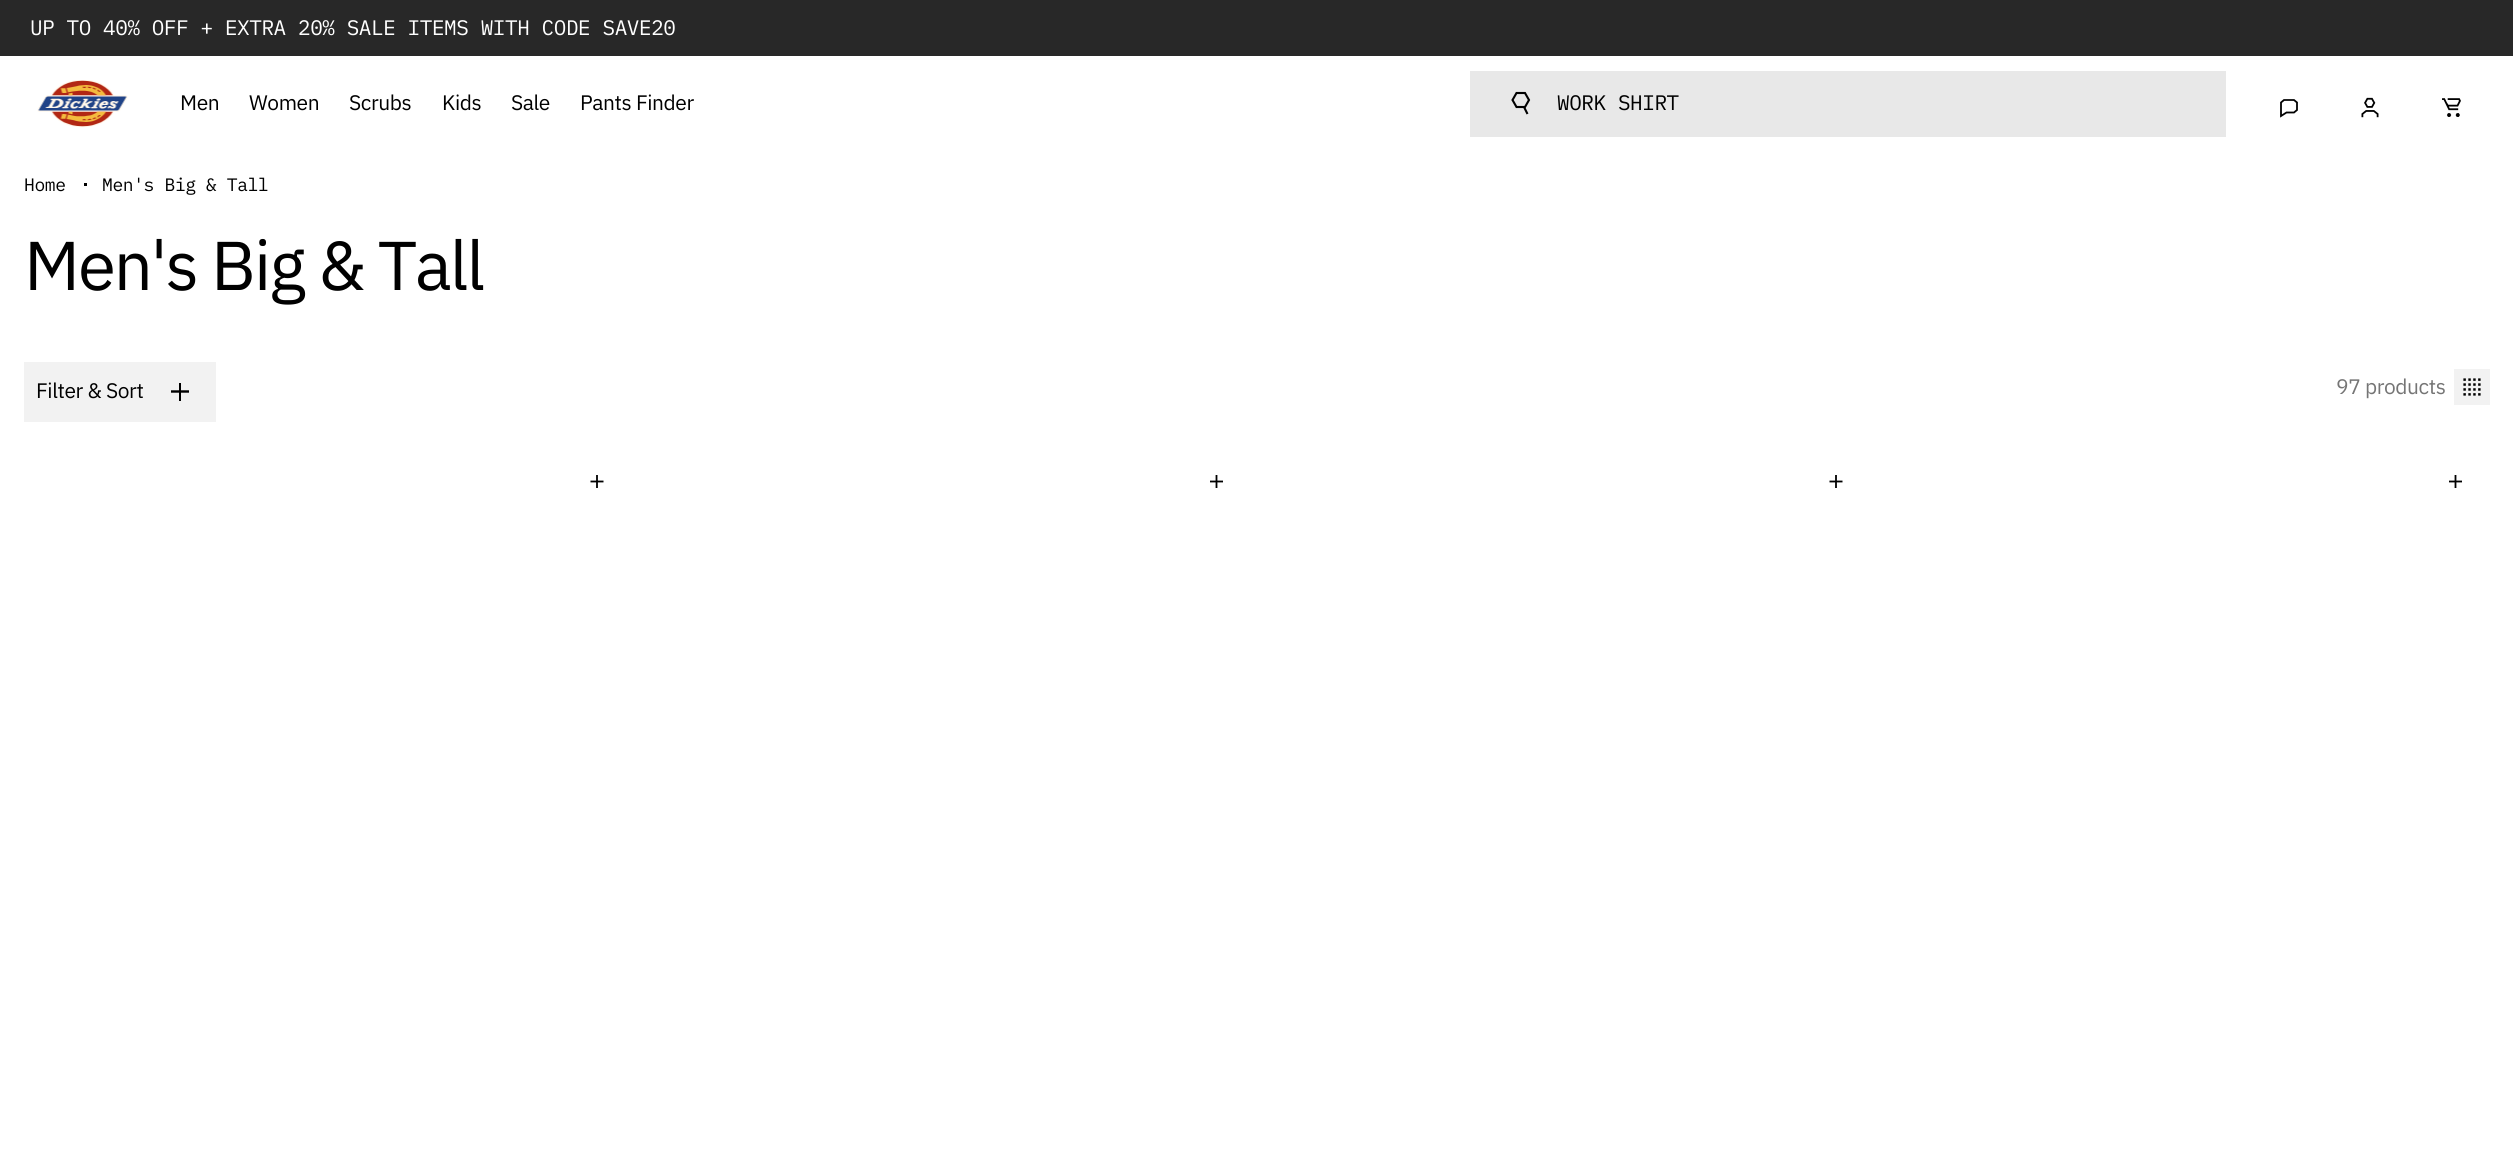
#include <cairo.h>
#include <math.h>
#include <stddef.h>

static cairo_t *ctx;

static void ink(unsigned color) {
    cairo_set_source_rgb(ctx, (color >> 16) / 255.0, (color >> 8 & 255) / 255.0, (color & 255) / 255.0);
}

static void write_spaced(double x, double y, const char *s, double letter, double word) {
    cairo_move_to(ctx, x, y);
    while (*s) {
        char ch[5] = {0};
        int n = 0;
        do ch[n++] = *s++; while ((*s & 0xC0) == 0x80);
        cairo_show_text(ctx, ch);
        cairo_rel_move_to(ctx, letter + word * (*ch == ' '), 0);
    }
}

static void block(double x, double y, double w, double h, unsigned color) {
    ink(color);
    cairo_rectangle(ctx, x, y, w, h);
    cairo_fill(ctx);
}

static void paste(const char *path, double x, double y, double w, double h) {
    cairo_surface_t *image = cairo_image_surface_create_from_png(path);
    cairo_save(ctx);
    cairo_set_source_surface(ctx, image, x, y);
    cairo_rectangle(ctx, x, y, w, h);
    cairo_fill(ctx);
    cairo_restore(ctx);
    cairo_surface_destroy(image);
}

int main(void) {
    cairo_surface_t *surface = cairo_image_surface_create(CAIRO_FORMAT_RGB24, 2513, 1166);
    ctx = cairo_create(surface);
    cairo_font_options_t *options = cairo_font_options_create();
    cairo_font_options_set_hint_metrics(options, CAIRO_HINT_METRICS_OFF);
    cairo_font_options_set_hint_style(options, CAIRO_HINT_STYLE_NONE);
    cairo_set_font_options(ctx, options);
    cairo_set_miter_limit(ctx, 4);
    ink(0xffffff);
    cairo_paint(ctx);
    block(0, 0, 2513, 56, 0x282828);
    cairo_select_font_face(ctx, "IBM Plex Mono", CAIRO_FONT_SLANT_NORMAL, CAIRO_FONT_WEIGHT_NORMAL);
    cairo_set_font_size(ctx, 21);
    ink(0xffffff);
    write_spaced(30, 35, "UP TO 40% OFF + EXTRA 20% SALE ITEMS WITH CODE SAVE20", -0.42, 0);
    paste("pic1.png", 37, 80, 91, 48);
    cairo_select_font_face(ctx, "IBM Plex Sans", CAIRO_FONT_SLANT_NORMAL, CAIRO_FONT_WEIGHT_NORMAL);
    ink(0x000000);
    write_spaced(180, 110, "Men", -0.42, 0);
    write_spaced(249, 110, "Women", -0.42, 0);
    write_spaced(349, 110, "Scrubs", -0.42, 0);
    write_spaced(442, 110, "Kids", -0.42, 0);
    write_spaced(511, 110, "Sale", -0.42, 0);
    write_spaced(580, 110, "Pants Finder", -0.42, 0);
    block(1470, 71, 756, 66, 0xe8e8e8);
    cairo_new_path(ctx);
    cairo_move_to(ctx, 1516.5, 107);
    cairo_line_to(ctx, 1525, 107);
    cairo_line_to(ctx, 1529, 100);
    cairo_line_to(ctx, 1525, 93);
    cairo_line_to(ctx, 1516.5, 93);
    cairo_line_to(ctx, 1512.5, 100);
    cairo_close_path(ctx);
    cairo_move_to(ctx, 1527.5, 114);
    cairo_line_to(ctx, 1524, 107);
    ink(0x000000);
    cairo_set_line_width(ctx, 2.1);
    cairo_stroke(ctx);
    cairo_select_font_face(ctx, "IBM Plex Mono", CAIRO_FONT_SLANT_NORMAL, CAIRO_FONT_WEIGHT_NORMAL);
    write_spaced(1557, 110, "WORK SHIRT", -0.42, 0);
    cairo_new_path(ctx);
    cairo_move_to(ctx, 2297, 102.5);
    cairo_line_to(ctx, 2294, 100);
    cairo_line_to(ctx, 2284, 100);
    cairo_line_to(ctx, 2281, 102.5);
    cairo_line_to(ctx, 2281, 116);
    cairo_line_to(ctx, 2286.5, 112.5);
    cairo_line_to(ctx, 2294, 112.5);
    cairo_line_to(ctx, 2297, 110);
    cairo_close_path(ctx);
    cairo_set_line_width(ctx, 1.8);
    cairo_stroke(ctx);
    paste("pic2.png", 2361, 97, 18, 21);
    paste("pic3.png", 2442, 98, 19, 19);
    cairo_set_font_size(ctx, 18);
    write_spaced(24, 191, "Home", -0.4, 0);
    block(84, 183, 3, 3, 0x000000);
    write_spaced(102, 191, "Men's Big & Tall", -0.4, 0);
    cairo_select_font_face(ctx, "IBM Plex Sans", CAIRO_FONT_SLANT_NORMAL, CAIRO_FONT_WEIGHT_NORMAL);
    cairo_set_font_size(ctx, 69);
    write_spaced(24, 290, "Men's Big & Tall", -2.1, 0);
    block(24, 362, 192, 60, 0xf2f2f2);
    cairo_set_font_size(ctx, 21);
    ink(0x000000);
    write_spaced(36, 398, "Filter & Sort", -0.42, 0);
    cairo_new_path(ctx);
    cairo_move_to(ctx, 189, 391.5);
    cairo_line_to(ctx, 171, 391.5);
    cairo_set_line_width(ctx, 2.4);
    cairo_stroke(ctx);
    block(179, 383, 2, 18, 0x000000);
    ink(0x757575);
    write_spaced(2336, 394, "97 products", -0.42, 0);
    block(2454, 369, 36, 36, 0xf2f2f2);
    paste("pic4.png", 2463, 378, 18, 18);
    cairo_new_path(ctx);
    cairo_move_to(ctx, 603.5, 481.5);
    cairo_line_to(ctx, 590.5, 481.5);
    ink(0x000000);
    cairo_set_line_width(ctx, 1.8);
    cairo_stroke(ctx);
    cairo_set_source_rgba(ctx, 0, 0, 0, 0.9);
    cairo_rectangle(ctx, 596, 475, 2, 13);
    cairo_fill(ctx);
    cairo_new_path(ctx);
    cairo_move_to(ctx, 1223, 481.5);
    cairo_line_to(ctx, 1210, 481.5);
    cairo_move_to(ctx, 1216.5, 488);
    cairo_line_to(ctx, 1216.5, 475);
    ink(0x000000);
    cairo_stroke(ctx);
    cairo_new_path(ctx);
    cairo_move_to(ctx, 1842.5, 481.5);
    cairo_line_to(ctx, 1829.5, 481.5);
    cairo_stroke(ctx);
    cairo_set_source_rgba(ctx, 0, 0, 0, 0.9);
    cairo_rectangle(ctx, 1835, 475, 2, 13);
    cairo_fill(ctx);
    cairo_new_path(ctx);
    cairo_move_to(ctx, 2462, 481.5);
    cairo_line_to(ctx, 2449, 481.5);
    cairo_move_to(ctx, 2455.5, 488);
    cairo_line_to(ctx, 2455.5, 475);
    ink(0x000000);
    cairo_stroke(ctx);
    cairo_surface_write_to_png(surface, "screenshot.png");
    cairo_font_options_destroy(options);
    cairo_destroy(ctx);
    cairo_surface_destroy(surface);
    return 0;
}
